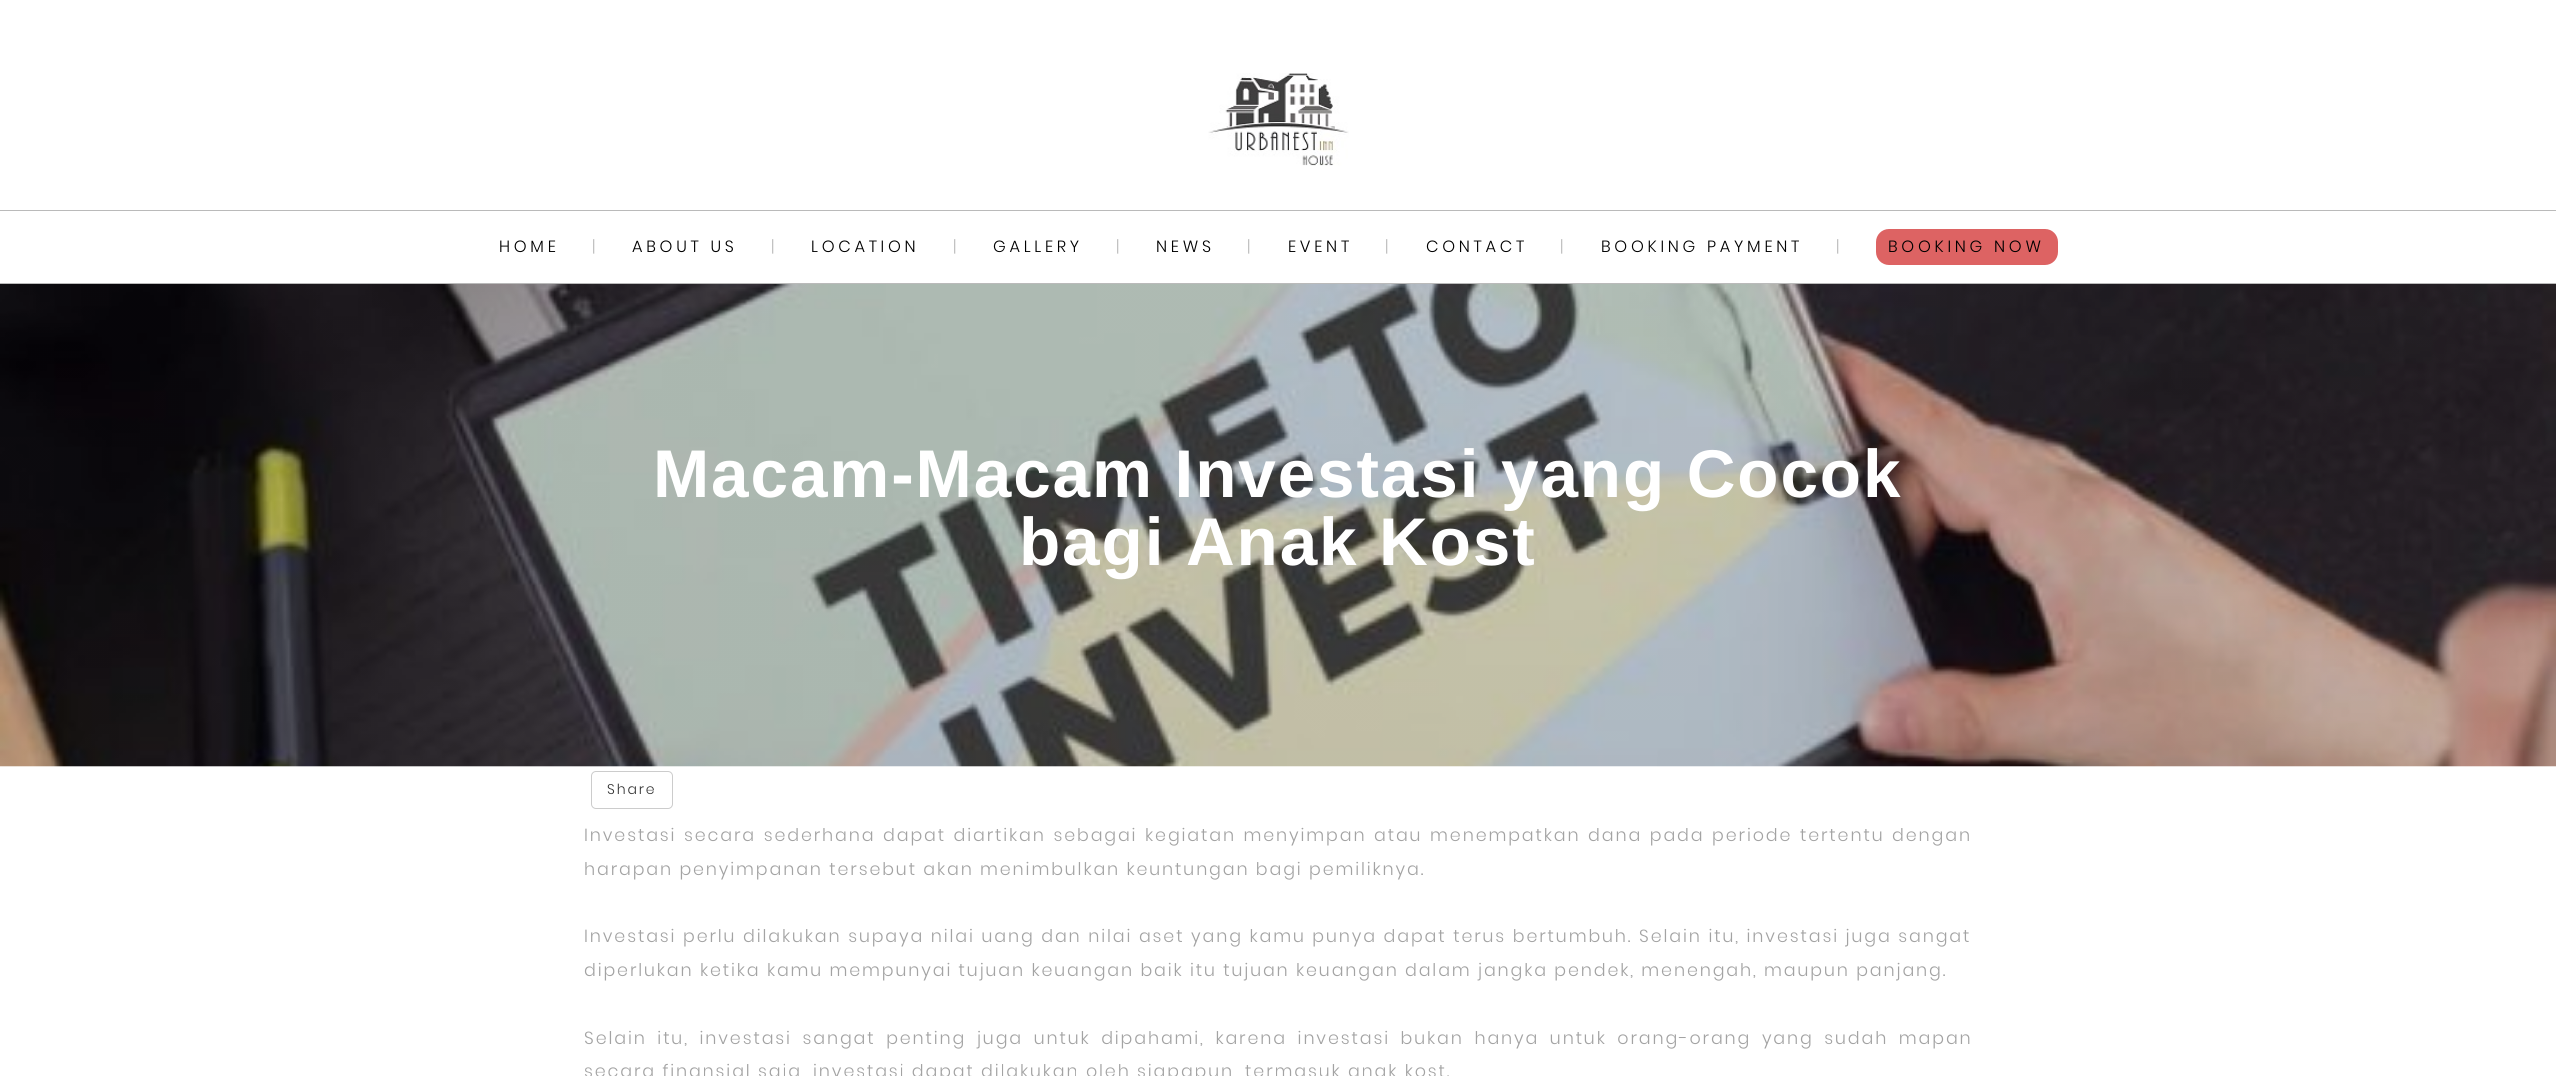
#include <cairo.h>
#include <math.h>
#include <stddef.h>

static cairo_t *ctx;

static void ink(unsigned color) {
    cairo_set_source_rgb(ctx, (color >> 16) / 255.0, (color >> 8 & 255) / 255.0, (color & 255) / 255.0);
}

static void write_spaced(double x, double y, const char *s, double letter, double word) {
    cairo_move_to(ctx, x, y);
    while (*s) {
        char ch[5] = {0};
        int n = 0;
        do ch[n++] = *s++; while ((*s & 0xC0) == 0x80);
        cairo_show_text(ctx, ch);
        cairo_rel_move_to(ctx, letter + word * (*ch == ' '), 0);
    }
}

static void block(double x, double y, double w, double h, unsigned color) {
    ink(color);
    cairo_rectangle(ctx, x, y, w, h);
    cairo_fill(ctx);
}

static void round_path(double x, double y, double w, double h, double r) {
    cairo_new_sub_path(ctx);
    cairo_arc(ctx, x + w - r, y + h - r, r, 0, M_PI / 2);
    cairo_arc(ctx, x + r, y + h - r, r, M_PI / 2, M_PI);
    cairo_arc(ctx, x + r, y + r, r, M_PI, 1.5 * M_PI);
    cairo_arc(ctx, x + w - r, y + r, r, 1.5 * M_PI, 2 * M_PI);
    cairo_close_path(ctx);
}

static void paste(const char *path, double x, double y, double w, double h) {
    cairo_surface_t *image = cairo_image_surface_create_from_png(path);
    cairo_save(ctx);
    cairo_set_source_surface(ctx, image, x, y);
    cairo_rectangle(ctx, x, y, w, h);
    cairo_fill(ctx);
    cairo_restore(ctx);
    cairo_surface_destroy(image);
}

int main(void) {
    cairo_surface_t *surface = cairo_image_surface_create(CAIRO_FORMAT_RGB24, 2556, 1076);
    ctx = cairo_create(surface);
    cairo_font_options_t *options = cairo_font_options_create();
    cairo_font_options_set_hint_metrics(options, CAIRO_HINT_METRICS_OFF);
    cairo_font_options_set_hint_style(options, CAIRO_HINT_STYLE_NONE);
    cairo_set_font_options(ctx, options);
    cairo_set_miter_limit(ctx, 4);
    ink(0xffffff);
    cairo_paint(ctx);
    paste("pic1.png", 1208, 73, 141, 93);
    block(0, 210, 2556, 1, 0xbababa);
    block(0, 283, 2556, 1, 0xbababa);
    cairo_select_font_face(ctx, "Poppins Light", CAIRO_FONT_SLANT_NORMAL, CAIRO_FONT_WEIGHT_NORMAL);
    cairo_set_font_size(ctx, 16.25);
    ink(0x000000);
    write_spaced(499, 252, "HOME", 3.75, 0);
    ink(0xbababa);
    write_spaced(592, 252, "|", 3.75, 0);
    ink(0x000000);
    write_spaced(632, 252, "ABOUT US", 3.75, 0);
    ink(0xbababa);
    write_spaced(771, 252, "|", 3.75, 0);
    ink(0x000000);
    write_spaced(811, 252, "LOCATION", 3.75, 0);
    ink(0xbababa);
    write_spaced(953, 252, "|", 3.75, 0);
    ink(0x000000);
    write_spaced(993, 252, "GALLERY", 3.75, 0);
    ink(0xbababa);
    write_spaced(1116, 252, "|", 3.75, 0);
    ink(0x000000);
    write_spaced(1156, 252, "NEWS", 3.75, 0);
    ink(0xbababa);
    write_spaced(1247, 252, "|", 3.75, 0);
    ink(0x000000);
    write_spaced(1288, 252, "EVENT", 3.75, 0);
    ink(0xbababa);
    write_spaced(1385, 252, "|", 3.75, 0);
    ink(0x000000);
    write_spaced(1426, 252, "CONTACT", 3.75, 0);
    ink(0xbababa);
    write_spaced(1560, 252, "|", 3.75, 0);
    ink(0x000000);
    write_spaced(1601, 252, "BOOKING PAYMENT", 3.75, 0);
    ink(0xbababa);
    write_spaced(1836, 252, "|", 3.75, 0);
    ink(0xdd6363);
    round_path(1876, 229, 182, 36, 13);
    cairo_fill(ctx);
    ink(0x000000);
    write_spaced(1888, 252, "BOOKING NOW", 3.75, 0);
    paste("pic2.png", 0, 284, 2556, 483);
    cairo_select_font_face(ctx, "Liberation Sans", CAIRO_FONT_SLANT_NORMAL, CAIRO_FONT_WEIGHT_BOLD);
    cairo_set_font_size(ctx, 67.5);
    ink(0xffffff);
    write_spaced(653, 497, "Macam-Macam Investasi yang Cocok", 1.88, 0);
    write_spaced(1019, 565, "bagi Anak Kost", 1.88, 0);
    round_path(591.5, 771.5, 81, 37, 4.5);
    ink(0xcccccc);
    cairo_set_line_width(ctx, 1);
    cairo_stroke(ctx);
    cairo_select_font_face(ctx, "Poppins Light", CAIRO_FONT_SLANT_NORMAL, CAIRO_FONT_WEIGHT_NORMAL);
    cairo_set_font_size(ctx, 14);
    ink(0x333333);
    write_spaced(607, 794, "Share", 1.88, 0);
    cairo_set_font_size(ctx, 17.5);
    ink(0xa3a3a3);
    write_spaced(584, 841, "Investasi secara sederhana dapat diartikan sebagai kegiatan menyimpan atau menempatkan dana pada periode tertentu dengan", 1.88, 1.25);
    write_spaced(584, 875, "harapan penyimpanan tersebut akan menimbulkan keuntungan bagi pemiliknya.", 1.88, 0);
    write_spaced(584, 942, "Investasi perlu dilakukan supaya nilai uang dan nilai aset yang kamu punya dapat terus bertumbuh. Selain itu, investasi juga sangat", 1.88, 0.25);
    write_spaced(584, 976, "diperlukan ketika kamu mempunyai tujuan keuangan baik itu tujuan keuangan dalam jangka pendek, menengah, maupun panjang.", 1.88, 0);
    write_spaced(584, 1044, "Selain itu, investasi sangat penting juga untuk dipahami, karena investasi bukan hanya untuk orang-orang yang sudah mapan", 1.88, 4.25);
    write_spaced(584, 1077, "secara finansial saja, investasi dapat dilakukan oleh siapapun, termasuk anak kost.", 1.88, 0);
    cairo_surface_write_to_png(surface, "screenshot.png");
    cairo_font_options_destroy(options);
    cairo_destroy(ctx);
    cairo_surface_destroy(surface);
    return 0;
}
